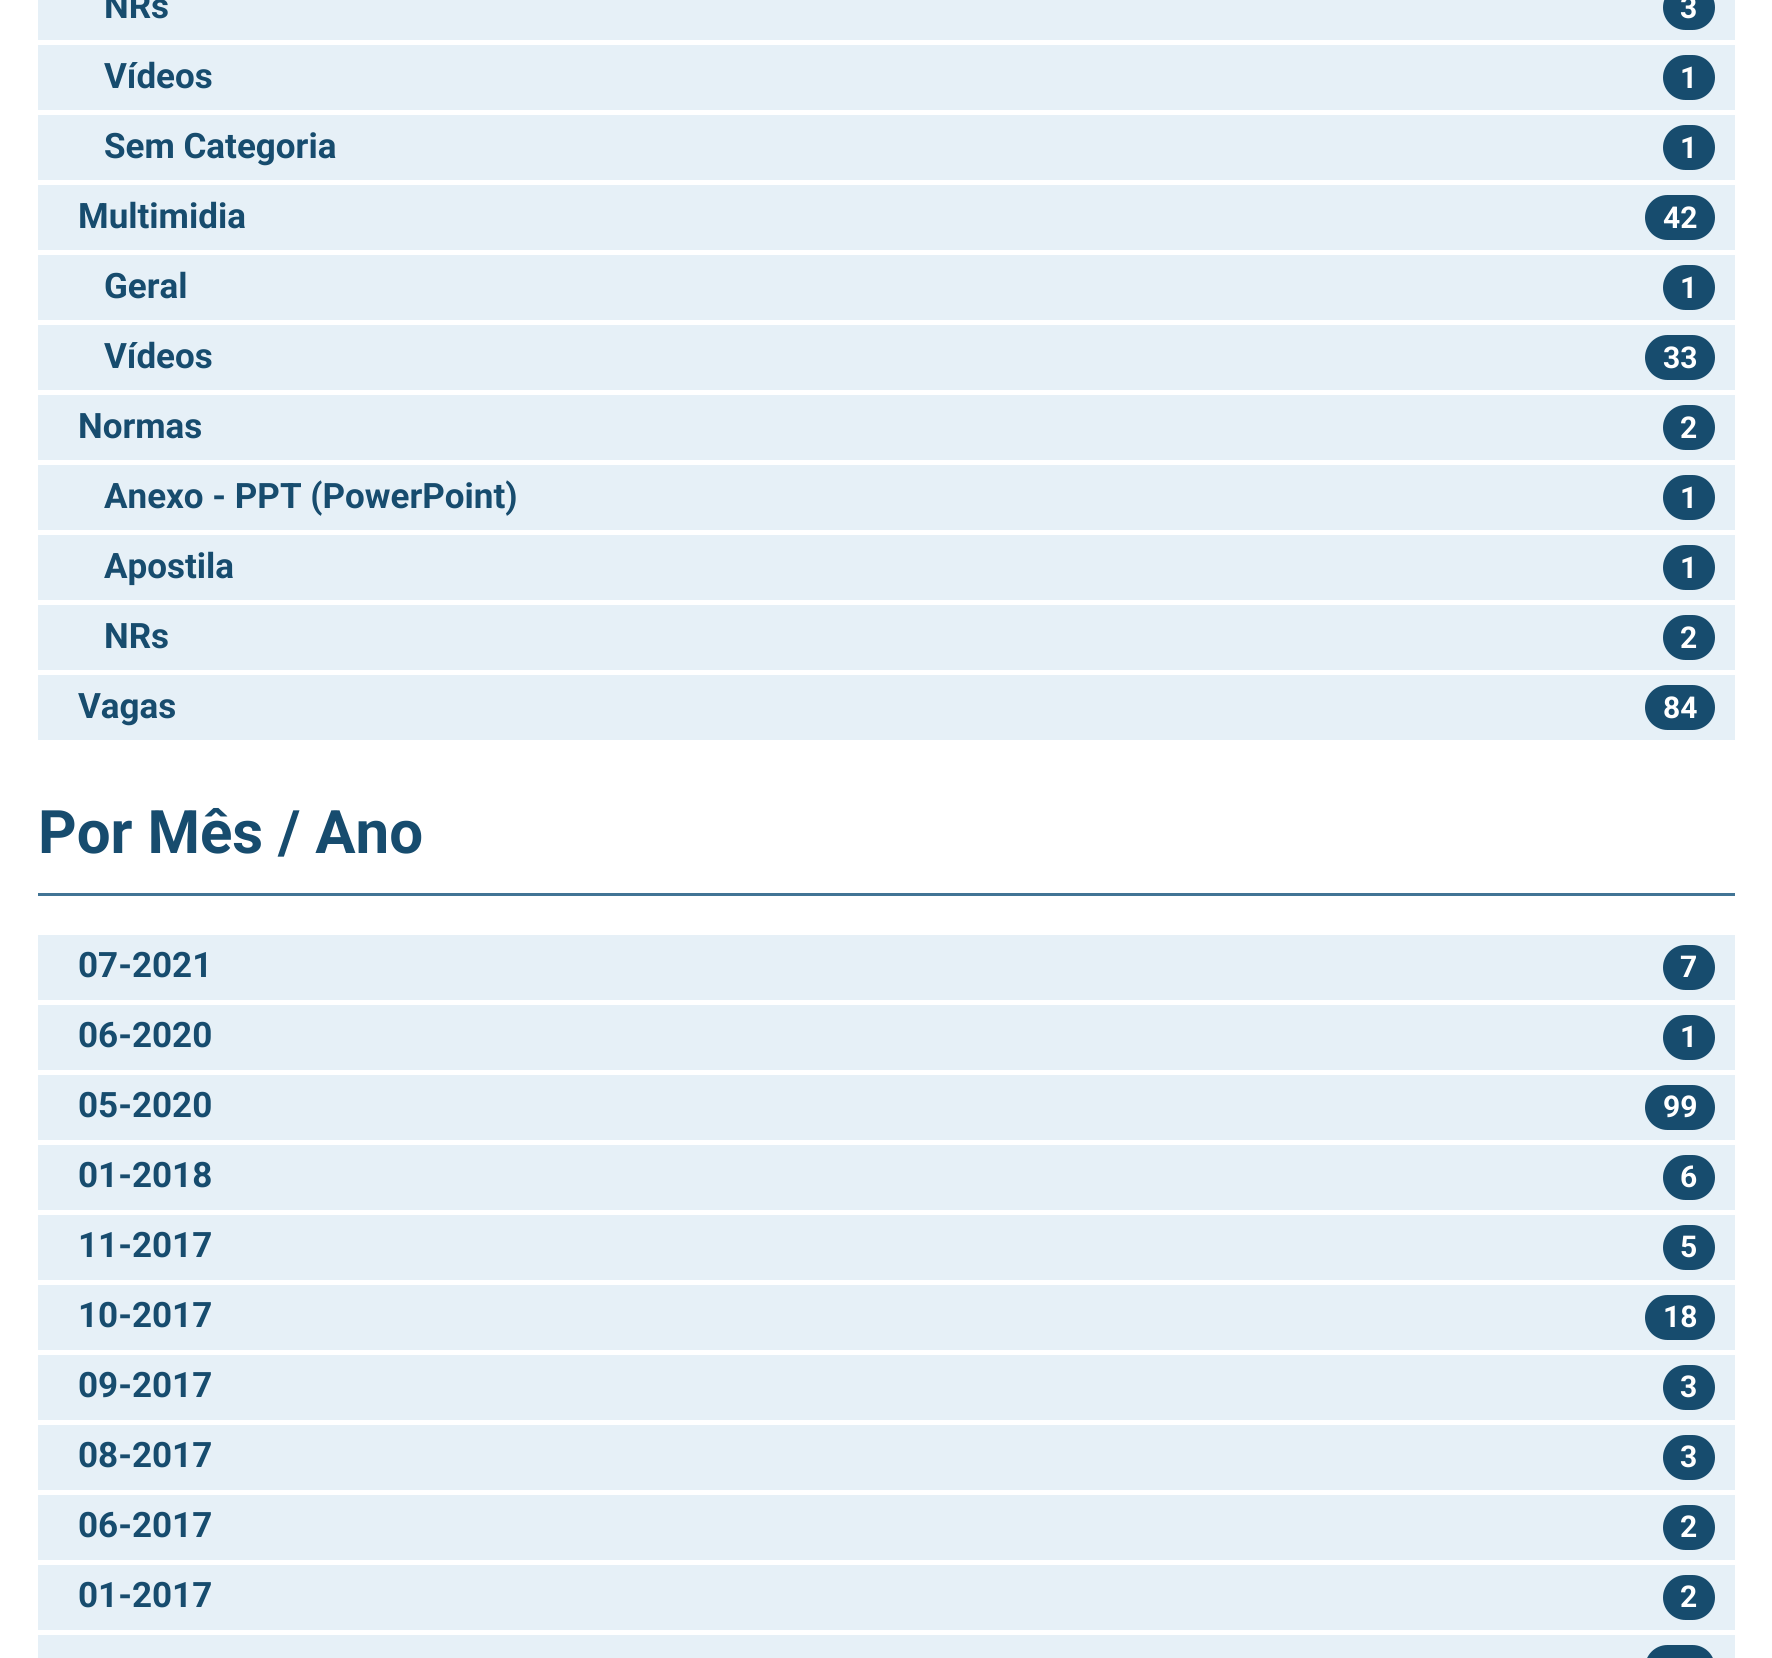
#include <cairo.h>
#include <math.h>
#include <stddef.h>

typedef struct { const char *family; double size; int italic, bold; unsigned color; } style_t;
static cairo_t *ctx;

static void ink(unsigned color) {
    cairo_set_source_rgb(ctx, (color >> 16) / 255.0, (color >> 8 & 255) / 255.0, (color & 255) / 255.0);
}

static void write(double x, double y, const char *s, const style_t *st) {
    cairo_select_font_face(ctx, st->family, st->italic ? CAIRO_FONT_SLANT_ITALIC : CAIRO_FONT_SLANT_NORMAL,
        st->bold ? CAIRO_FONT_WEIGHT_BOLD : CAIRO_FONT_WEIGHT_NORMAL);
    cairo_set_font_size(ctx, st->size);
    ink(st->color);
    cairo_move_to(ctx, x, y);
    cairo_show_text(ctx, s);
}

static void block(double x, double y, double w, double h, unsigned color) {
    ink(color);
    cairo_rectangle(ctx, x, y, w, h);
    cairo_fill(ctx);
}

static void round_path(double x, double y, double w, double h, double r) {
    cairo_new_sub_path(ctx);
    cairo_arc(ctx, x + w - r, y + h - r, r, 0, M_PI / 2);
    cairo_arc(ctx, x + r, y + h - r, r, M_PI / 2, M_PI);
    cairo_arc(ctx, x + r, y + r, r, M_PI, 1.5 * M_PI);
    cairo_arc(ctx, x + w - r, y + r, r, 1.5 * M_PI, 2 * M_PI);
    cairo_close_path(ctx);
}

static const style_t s1 = {"Roboto", 35, 0, 1, 0x174c6e};
static const style_t s2 = {"Roboto", 30, 0, 1, 0xffffff};
static const style_t s3 = {"Roboto", 60, 0, 1, 0x174c6e};

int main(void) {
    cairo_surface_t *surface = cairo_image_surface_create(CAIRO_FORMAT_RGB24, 1772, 1658);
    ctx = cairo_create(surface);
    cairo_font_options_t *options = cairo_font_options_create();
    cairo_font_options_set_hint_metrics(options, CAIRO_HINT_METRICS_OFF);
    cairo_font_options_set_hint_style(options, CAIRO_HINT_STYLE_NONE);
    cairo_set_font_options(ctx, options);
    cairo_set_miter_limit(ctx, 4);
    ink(0xffffff);
    cairo_paint(ctx);
    block(38, 0, 1697, 40, 0xe6f0f7);
    write(104, 18, "NRs", &s1);
    round_path(1663, -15, 52, 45, 22.5);
    cairo_fill(ctx);
    write(1680, 18, "3", &s2);
    block(38, 45, 1697, 65, 0xe6f0f7);
    write(104, 88, "Vídeos", &s1);
    round_path(1663, 55, 52, 45, 22.5);
    cairo_fill(ctx);
    write(1680, 88, "1", &s2);
    block(38, 115, 1697, 65, 0xe6f0f7);
    write(104, 158, "Sem Categoria", &s1);
    round_path(1663, 125, 52, 45, 22.5);
    cairo_fill(ctx);
    write(1680, 158, "1", &s2);
    block(38, 185, 1697, 65, 0xe6f0f7);
    write(78, 228, "Multimidia", &s1);
    round_path(1645, 195, 70, 45, 22.5);
    cairo_fill(ctx);
    write(1663, 228, "42", &s2);
    block(38, 255, 1697, 65, 0xe6f0f7);
    write(104, 298, "Geral", &s1);
    round_path(1663, 265, 52, 45, 22.5);
    cairo_fill(ctx);
    write(1680, 298, "1", &s2);
    block(38, 325, 1697, 65, 0xe6f0f7);
    write(104, 368, "Vídeos", &s1);
    round_path(1645, 335, 70, 45, 22.5);
    cairo_fill(ctx);
    write(1663, 368, "33", &s2);
    block(38, 395, 1697, 65, 0xe6f0f7);
    write(78, 438, "Normas", &s1);
    round_path(1663, 405, 52, 45, 22.5);
    cairo_fill(ctx);
    write(1680, 438, "2", &s2);
    block(38, 465, 1697, 65, 0xe6f0f7);
    write(104, 508, "Anexo - PPT (PowerPoint)", &s1);
    round_path(1663, 475, 52, 45, 22.5);
    cairo_fill(ctx);
    write(1680, 508, "1", &s2);
    block(38, 535, 1697, 65, 0xe6f0f7);
    write(104, 578, "Apostila", &s1);
    round_path(1663, 545, 52, 45, 22.5);
    cairo_fill(ctx);
    write(1680, 578, "1", &s2);
    block(38, 605, 1697, 65, 0xe6f0f7);
    write(104, 648, "NRs", &s1);
    round_path(1663, 615, 52, 45, 22.5);
    cairo_fill(ctx);
    write(1680, 648, "2", &s2);
    block(38, 675, 1697, 65, 0xe6f0f7);
    write(78, 718, "Vagas", &s1);
    round_path(1645, 685, 70, 45, 22.5);
    cairo_fill(ctx);
    write(1663, 718, "84", &s2);
    write(38, 853, "Por Mês / Ano", &s3);
    block(38, 893, 1697, 3, 0x417495);
    block(38, 935, 1697, 65, 0xe6f0f7);
    write(78, 977, "07-2021", &s1);
    round_path(1663, 945, 52, 45, 22.5);
    cairo_fill(ctx);
    write(1680, 977, "7", &s2);
    block(38, 1005, 1697, 65, 0xe6f0f7);
    write(78, 1047, "06-2020", &s1);
    round_path(1663, 1015, 52, 45, 22.5);
    cairo_fill(ctx);
    write(1680, 1047, "1", &s2);
    block(38, 1075, 1697, 65, 0xe6f0f7);
    write(78, 1117, "05-2020", &s1);
    round_path(1645, 1085, 70, 45, 22.5);
    cairo_fill(ctx);
    write(1663, 1117, "99", &s2);
    block(38, 1145, 1697, 65, 0xe6f0f7);
    write(78, 1187, "01-2018", &s1);
    round_path(1663, 1155, 52, 45, 22.5);
    cairo_fill(ctx);
    write(1680, 1187, "6", &s2);
    block(38, 1215, 1697, 65, 0xe6f0f7);
    write(78, 1257, "11-2017", &s1);
    round_path(1663, 1225, 52, 45, 22.5);
    cairo_fill(ctx);
    write(1680, 1257, "5", &s2);
    block(38, 1285, 1697, 65, 0xe6f0f7);
    write(78, 1327, "10-2017", &s1);
    round_path(1645, 1295, 70, 45, 22.5);
    cairo_fill(ctx);
    write(1663, 1327, "18", &s2);
    block(38, 1355, 1697, 65, 0xe6f0f7);
    write(78, 1397, "09-2017", &s1);
    round_path(1663, 1365, 52, 45, 22.5);
    cairo_fill(ctx);
    write(1680, 1397, "3", &s2);
    block(38, 1425, 1697, 65, 0xe6f0f7);
    write(78, 1467, "08-2017", &s1);
    round_path(1663, 1435, 52, 45, 22.5);
    cairo_fill(ctx);
    write(1680, 1467, "3", &s2);
    block(38, 1495, 1697, 65, 0xe6f0f7);
    write(78, 1537, "06-2017", &s1);
    round_path(1663, 1505, 52, 45, 22.5);
    cairo_fill(ctx);
    write(1680, 1537, "2", &s2);
    block(38, 1565, 1697, 65, 0xe6f0f7);
    write(78, 1607, "01-2017", &s1);
    round_path(1663, 1575, 52, 45, 22.5);
    cairo_fill(ctx);
    write(1680, 1607, "2", &s2);
    block(38, 1635, 1697, 23, 0xe6f0f7);
    ink(0x174c6e);
    round_path(1645, 1645, 70, 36, 22.5);
    cairo_fill(ctx);
    cairo_surface_write_to_png(surface, "screenshot.png");
    cairo_font_options_destroy(options);
    cairo_destroy(ctx);
    cairo_surface_destroy(surface);
    return 0;
}
